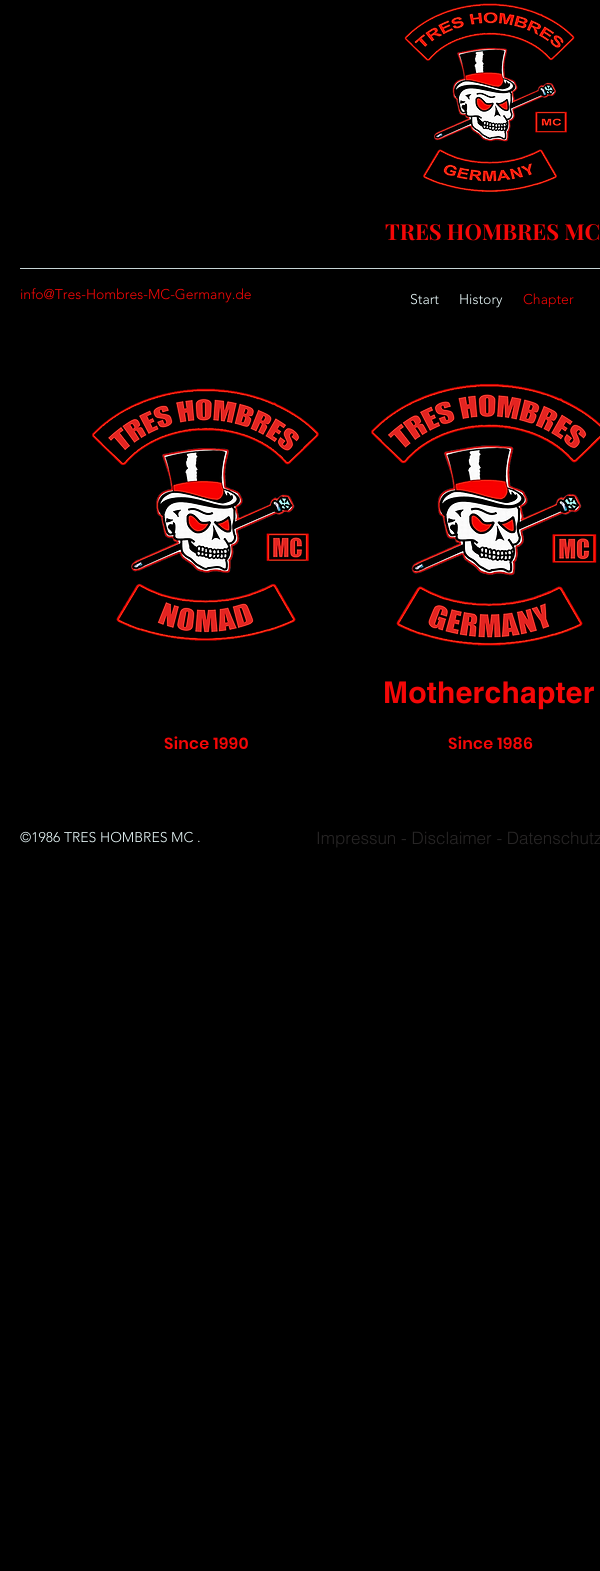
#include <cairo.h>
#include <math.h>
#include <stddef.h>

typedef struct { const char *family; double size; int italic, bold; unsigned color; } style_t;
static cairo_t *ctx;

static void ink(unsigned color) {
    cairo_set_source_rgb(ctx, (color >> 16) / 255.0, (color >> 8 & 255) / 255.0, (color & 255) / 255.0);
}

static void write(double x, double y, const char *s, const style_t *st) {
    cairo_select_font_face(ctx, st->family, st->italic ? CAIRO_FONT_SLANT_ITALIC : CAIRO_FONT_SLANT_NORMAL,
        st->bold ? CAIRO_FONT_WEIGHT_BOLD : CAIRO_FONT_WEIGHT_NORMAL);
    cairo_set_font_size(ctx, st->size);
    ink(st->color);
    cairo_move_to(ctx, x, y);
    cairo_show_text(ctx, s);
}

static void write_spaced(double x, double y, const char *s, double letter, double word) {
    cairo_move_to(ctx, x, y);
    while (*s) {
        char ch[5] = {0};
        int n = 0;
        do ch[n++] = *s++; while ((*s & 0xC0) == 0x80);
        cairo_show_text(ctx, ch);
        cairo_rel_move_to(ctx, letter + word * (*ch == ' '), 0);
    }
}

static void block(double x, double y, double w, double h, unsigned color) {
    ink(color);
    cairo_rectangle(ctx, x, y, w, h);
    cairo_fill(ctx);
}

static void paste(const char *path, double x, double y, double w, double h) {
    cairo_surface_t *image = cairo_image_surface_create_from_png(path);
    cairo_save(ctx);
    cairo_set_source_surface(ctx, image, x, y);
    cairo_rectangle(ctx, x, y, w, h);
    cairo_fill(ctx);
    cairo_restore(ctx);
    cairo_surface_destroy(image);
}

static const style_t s1 = {"Playfair Display", 22, 0, 1, 0xf50707};
static const style_t s2 = {"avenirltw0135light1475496 Light", 14, 0, 0, 0xf50707};
static const style_t s3 = {"avenirltw0135light1475496 Light", 14, 0, 0, 0xe9f9fa};
static const style_t s4 = {"avenirltw0135light1475496 Light", 14, 0, 0, 0xee0505};
static const style_t s5 = {"helvetica Light", 17, 0, 0, 0x282626};

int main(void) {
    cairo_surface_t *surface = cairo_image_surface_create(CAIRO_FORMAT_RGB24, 600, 1571);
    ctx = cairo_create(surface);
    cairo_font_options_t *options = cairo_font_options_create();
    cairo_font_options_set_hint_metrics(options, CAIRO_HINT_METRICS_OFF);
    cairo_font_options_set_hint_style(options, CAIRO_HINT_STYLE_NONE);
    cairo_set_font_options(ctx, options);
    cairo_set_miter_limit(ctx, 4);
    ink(0x000000);
    cairo_paint(ctx);
    paste("pic1.png", 404, 3, 171, 189);
    write(385, 240, "TRES HOMBRES MC", &s1);
    block(20, 268, 580, 1, 0xc6d4d5);
    write(20, 299, "info@Tres-Hombres-MC-Germany.de", &s2);
    write(410, 304, "Start", &s3);
    write(459, 304, "History", &s3);
    write(523, 304, "Chapter", &s4);
    paste("pic2.png", 92, 388, 227, 253);
    cairo_select_font_face(ctx, "Poppins SemiBold", CAIRO_FONT_SLANT_NORMAL, CAIRO_FONT_WEIGHT_NORMAL);
    cairo_set_font_size(ctx, 16);
    ink(0xf50707);
    write_spaced(164, 749, "Since 1990", 0.25, 0);
    paste("pic3.png", 371, 383, 229, 263);
    cairo_select_font_face(ctx, "helvetica", CAIRO_FONT_SLANT_NORMAL, CAIRO_FONT_WEIGHT_BOLD);
    cairo_set_font_size(ctx, 30);
    write_spaced(383, 703, "Motherchapter", 0.25, 0);
    cairo_select_font_face(ctx, "Poppins SemiBold", CAIRO_FONT_SLANT_NORMAL, CAIRO_FONT_WEIGHT_NORMAL);
    cairo_set_font_size(ctx, 16);
    write_spaced(448, 749, "Since 1986", 0.25, 0);
    write(20, 842, "©1986 TRES HOMBRES MC .", &s3);
    write(316, 844, "Impressun - Disclaimer - Datenschutz", &s5);
    cairo_surface_write_to_png(surface, "screenshot.png");
    cairo_font_options_destroy(options);
    cairo_destroy(ctx);
    cairo_surface_destroy(surface);
    return 0;
}
